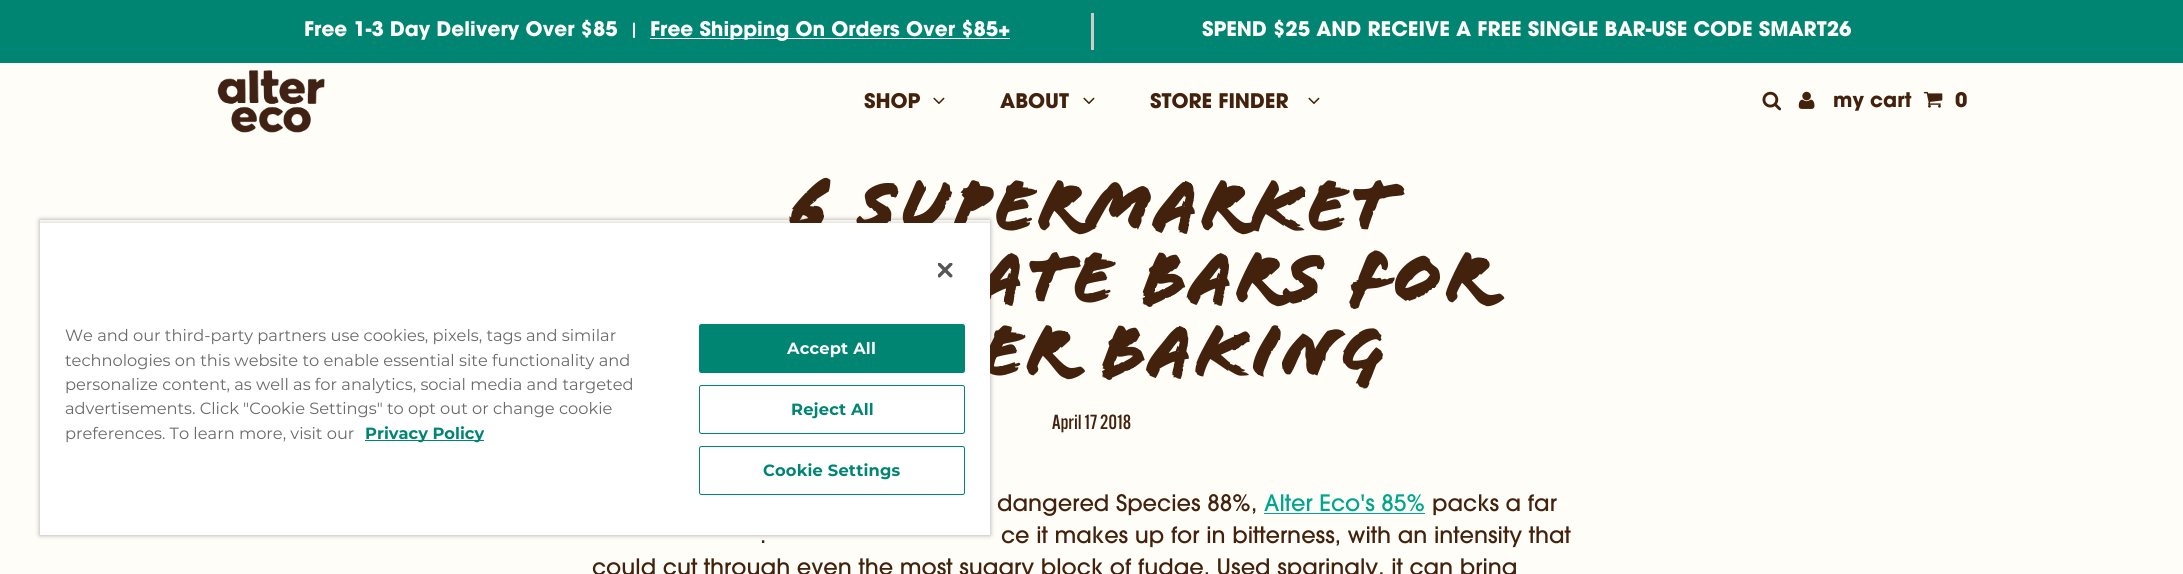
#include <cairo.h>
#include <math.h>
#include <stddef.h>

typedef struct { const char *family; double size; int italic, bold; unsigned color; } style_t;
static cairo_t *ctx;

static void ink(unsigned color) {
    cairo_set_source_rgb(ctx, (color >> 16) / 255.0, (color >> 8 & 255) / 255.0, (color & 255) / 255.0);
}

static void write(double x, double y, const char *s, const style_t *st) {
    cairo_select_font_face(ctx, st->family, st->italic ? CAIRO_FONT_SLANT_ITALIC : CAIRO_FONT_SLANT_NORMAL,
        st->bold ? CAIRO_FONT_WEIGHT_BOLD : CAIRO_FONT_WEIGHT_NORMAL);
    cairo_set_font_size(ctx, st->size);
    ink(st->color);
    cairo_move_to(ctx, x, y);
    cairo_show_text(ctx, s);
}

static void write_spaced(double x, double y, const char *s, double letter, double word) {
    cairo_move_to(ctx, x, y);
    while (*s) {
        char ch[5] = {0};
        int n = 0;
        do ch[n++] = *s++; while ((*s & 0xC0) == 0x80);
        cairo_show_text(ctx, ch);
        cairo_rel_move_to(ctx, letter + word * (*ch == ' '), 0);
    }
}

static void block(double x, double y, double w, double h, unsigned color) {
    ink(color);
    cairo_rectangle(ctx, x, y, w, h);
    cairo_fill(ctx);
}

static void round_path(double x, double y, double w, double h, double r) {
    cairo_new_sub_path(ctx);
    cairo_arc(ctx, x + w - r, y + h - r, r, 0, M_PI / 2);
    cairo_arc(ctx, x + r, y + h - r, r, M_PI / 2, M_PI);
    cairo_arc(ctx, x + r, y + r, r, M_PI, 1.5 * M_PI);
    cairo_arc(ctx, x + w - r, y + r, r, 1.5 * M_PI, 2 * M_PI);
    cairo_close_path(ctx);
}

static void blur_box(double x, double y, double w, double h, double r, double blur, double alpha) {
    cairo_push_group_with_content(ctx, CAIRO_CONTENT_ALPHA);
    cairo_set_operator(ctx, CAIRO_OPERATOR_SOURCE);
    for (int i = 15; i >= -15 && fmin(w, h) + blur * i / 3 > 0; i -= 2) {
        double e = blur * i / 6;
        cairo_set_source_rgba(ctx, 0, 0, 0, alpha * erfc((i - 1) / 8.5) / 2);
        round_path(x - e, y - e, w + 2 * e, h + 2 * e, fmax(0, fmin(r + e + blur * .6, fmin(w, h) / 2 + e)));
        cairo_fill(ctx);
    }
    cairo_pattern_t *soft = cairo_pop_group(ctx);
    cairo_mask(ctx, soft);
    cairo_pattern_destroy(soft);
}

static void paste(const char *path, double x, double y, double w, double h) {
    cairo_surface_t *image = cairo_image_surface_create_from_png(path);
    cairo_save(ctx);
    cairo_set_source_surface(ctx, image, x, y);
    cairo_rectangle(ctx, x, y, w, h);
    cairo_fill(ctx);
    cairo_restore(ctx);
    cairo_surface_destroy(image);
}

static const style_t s1 = {"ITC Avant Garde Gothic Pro", 20, 0, 1, 0xfffdf8};
static const style_t s2 = {"ITC Avant Garde Gothic Pro Medium", 18, 0, 0, 0xffffff};
static const style_t s3 = {"ITC Avant Garde Gothic Pro", 20, 0, 1, 0xffffff};
static const style_t s4 = {"Montserrat", 16.25, 0, 0, 0x696969};
static const style_t s5 = {"Montserrat", 16.25, 0, 1, 0x008573};
static const style_t s6 = {"ITC Avant Garde Gothic Pro", 20, 0, 1, 0x42210d};
static const style_t s7 = {"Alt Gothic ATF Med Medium", 20, 0, 0, 0x42210d};
static const style_t s8 = {"ITC Avant Garde Gothic Pro Medium", 22.5, 0, 0, 0x42210d};
static const style_t s9 = {"ITC Avant Garde Gothic Pro Medium", 22.5, 0, 0, 0x00a58e};

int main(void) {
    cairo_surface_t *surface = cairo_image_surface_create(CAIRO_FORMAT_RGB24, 2183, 574);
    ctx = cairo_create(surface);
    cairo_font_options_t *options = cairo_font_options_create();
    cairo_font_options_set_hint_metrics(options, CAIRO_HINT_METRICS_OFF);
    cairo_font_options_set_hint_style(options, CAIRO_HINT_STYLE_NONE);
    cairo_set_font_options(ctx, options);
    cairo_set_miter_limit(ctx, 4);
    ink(0xfffdf8);
    cairo_paint(ctx);
    block(0, 0, 2183, 63, 0x008573);
    write(304, 36, "Free 1-3 Day Delivery Over $85", &s1);
    write(629, 36, "|", &s2);
    block(650, 38, 360, 1, 0xffffff);
    write(650, 36, "Free Shipping On Orders Over $85+", &s3);
    block(1091, 13, 3, 37, 0xcccccc);
    write(1202, 36, "SPEND $25 AND RECEIVE A FREE SINGLE BAR-USE CODE SMART26", &s1);
    cairo_save(ctx);
    cairo_set_fill_rule(ctx, CAIRO_FILL_RULE_EVEN_ODD);
    cairo_new_path(ctx);
    cairo_move_to(ctx, 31, 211);
    cairo_line_to(ctx, 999, 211);
    cairo_line_to(ctx, 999, 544);
    cairo_line_to(ctx, 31, 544);
    cairo_close_path(ctx);
    cairo_move_to(ctx, 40, 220);
    cairo_line_to(ctx, 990, 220);
    cairo_line_to(ctx, 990, 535);
    cairo_line_to(ctx, 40, 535);
    cairo_close_path(ctx);
    cairo_clip(ctx);
    ink(0x000000);
    blur_box(40, 220, 950, 315, 0, 2.5, 0.35);
    cairo_restore(ctx);
    cairo_save(ctx);
    cairo_rectangle(ctx, 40, 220, 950, 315);
    cairo_clip(ctx);
    ink(0x000000);
    blur_box(40, 223, 950, 312, 0, 2.5, 0.2);
    cairo_restore(ctx);
    cairo_select_font_face(ctx, "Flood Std", CAIRO_FONT_SLANT_NORMAL, CAIRO_FONT_WEIGHT_BOLD);
    cairo_set_font_size(ctx, 72.5);
    ink(0x42210d);
    write_spaced(787, 228, "6 Supermarket", 4.5, 0);
    write_spaced(980, 300, "ate Bars for", 4.5, 0);
    write_spaced(982, 373, "er Baking", 4.5, 0);
    block(40, 223, 950, 312, 0xffffff);
    paste("pic1.png", 938, 263, 15, 15);
    write(65, 341, "We and our third-party partners use cookies, pixels, tags and similar", &s4);
    write(65, 366, "technologies on this website to enable essential site functionality and", &s4);
    write(65, 390, "personalize content, as well as for analytics, social media and targeted", &s4);
    write(65, 414, "advertisements. Click \"Cookie Settings\" to opt out or change cookie", &s4);
    write(65, 439, "preferences. To learn more, visit our", &s4);
    block(365, 440, 119, 1, 0x008573);
    write(365, 439, "Privacy Policy", &s5);
    round_path(699.5, 324.5, 265, 48, 2);
    cairo_fill_preserve(ctx);
    cairo_set_line_width(ctx, 1);
    cairo_stroke(ctx);
    ink(0xffffff);
    write_spaced(787, 354, "Accept All", 0.2, 0);
    round_path(699.5, 385.5, 265, 48, 2);
    ink(0x008573);
    cairo_stroke(ctx);
    write_spaced(791, 415, "Reject All", 0.2, 0);
    round_path(699.5, 446.5, 265, 48, 2);
    cairo_stroke(ctx);
    write_spaced(763, 476, "Cookie Settings", 0.2, 0);
    paste("pic2.png", 217, 70, 108, 63);
    write(864, 108, "SHOP", &s6);
    paste("pic3.png", 933, 97, 12, 8);
    write(1000, 108, "ABOUT", &s6);
    paste("pic3.png", 1083, 97, 12, 8);
    write(1150, 108, "STORE FINDER", &s6);
    paste("pic3.png", 1308, 97, 12, 8);
    paste("pic4.png", 1762, 91, 19, 20);
    paste("pic5.png", 1798, 91, 17, 18);
    write(1833, 107, "my cart", &s6);
    paste("pic6.png", 1923, 91, 20, 17);
    write(1955, 107, "0", &s6);
    write(1052, 429, "April 17 2018", &s7);
    write(997, 511, "dangered Species 88%,", &s8);
    write(1264, 511, "Alter Eco's 85%", &s9);
    block(1264, 513, 161, 1, 0x00a58e);
    write(1432, 511, "packs a far", &s8);
    write(760, 543, ".", &s8);
    write(1001, 543, "ce it makes up for in bitterness, with an intensity that", &s8);
    write(592, 575, "could cut through even the most sugary block of fudge. Used sparingly, it can bring", &s8);
    cairo_surface_write_to_png(surface, "screenshot.png");
    cairo_font_options_destroy(options);
    cairo_destroy(ctx);
    cairo_surface_destroy(surface);
    return 0;
}
